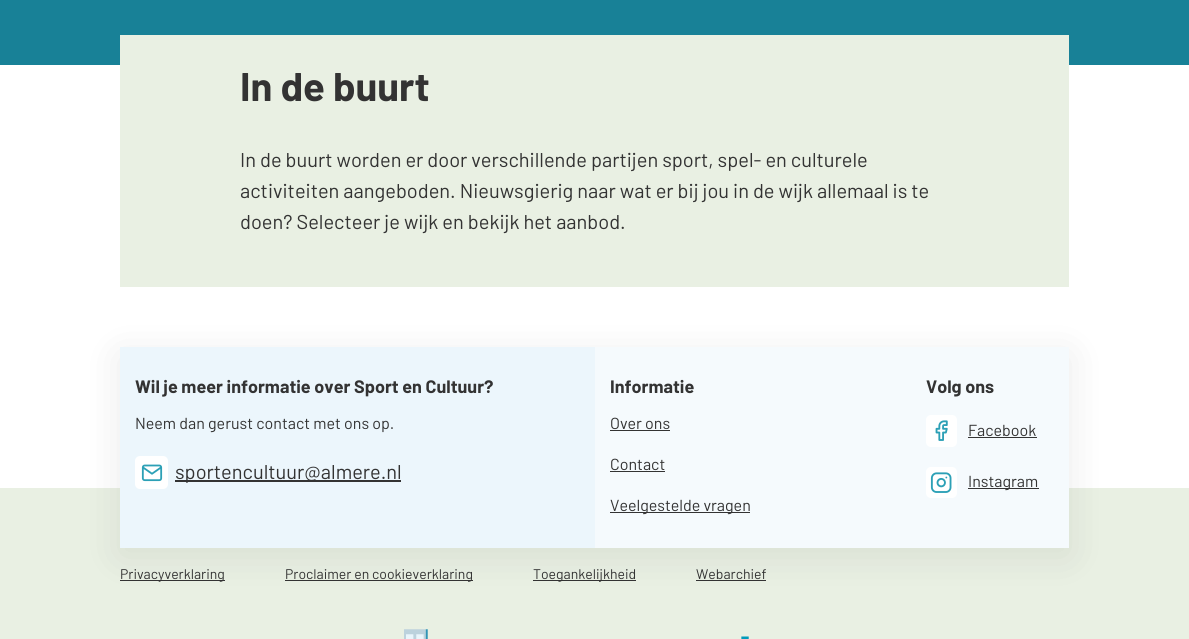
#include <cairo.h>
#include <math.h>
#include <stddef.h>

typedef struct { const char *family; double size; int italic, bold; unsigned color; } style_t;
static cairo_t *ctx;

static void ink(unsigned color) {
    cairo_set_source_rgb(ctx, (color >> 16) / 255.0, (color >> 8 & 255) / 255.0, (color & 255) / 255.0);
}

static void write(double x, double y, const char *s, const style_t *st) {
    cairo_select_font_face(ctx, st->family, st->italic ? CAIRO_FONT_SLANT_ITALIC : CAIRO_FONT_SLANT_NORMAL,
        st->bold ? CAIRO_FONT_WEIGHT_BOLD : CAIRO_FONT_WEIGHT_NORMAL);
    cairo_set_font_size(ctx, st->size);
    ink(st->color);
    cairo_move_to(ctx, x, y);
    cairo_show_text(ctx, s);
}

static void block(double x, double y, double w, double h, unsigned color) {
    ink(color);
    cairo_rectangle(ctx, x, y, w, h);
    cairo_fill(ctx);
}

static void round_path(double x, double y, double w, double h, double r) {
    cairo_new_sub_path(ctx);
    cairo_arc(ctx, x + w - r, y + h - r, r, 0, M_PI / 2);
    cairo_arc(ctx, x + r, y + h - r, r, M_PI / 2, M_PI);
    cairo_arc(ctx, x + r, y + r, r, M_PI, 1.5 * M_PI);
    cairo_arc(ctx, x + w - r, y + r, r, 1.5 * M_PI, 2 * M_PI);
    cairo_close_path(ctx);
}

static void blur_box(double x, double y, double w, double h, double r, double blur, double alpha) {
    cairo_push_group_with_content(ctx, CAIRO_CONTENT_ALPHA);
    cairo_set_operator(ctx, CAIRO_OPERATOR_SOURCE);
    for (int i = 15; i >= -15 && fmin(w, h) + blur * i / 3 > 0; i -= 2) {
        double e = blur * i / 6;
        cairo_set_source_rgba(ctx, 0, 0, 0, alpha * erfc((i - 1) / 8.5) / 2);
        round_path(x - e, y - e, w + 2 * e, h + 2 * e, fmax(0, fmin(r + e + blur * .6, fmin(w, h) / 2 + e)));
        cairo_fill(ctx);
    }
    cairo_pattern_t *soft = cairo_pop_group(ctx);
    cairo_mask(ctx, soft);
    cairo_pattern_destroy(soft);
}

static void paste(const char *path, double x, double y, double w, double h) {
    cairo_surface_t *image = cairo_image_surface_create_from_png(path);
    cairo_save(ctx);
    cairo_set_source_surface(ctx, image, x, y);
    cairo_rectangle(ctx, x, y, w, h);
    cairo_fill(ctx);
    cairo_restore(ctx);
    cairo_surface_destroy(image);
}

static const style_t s1 = {"Barlow", 40, 0, 1, 0x333333};
static const style_t s2 = {"Barlow", 20, 0, 0, 0x333333};
static const style_t s3 = {"Barlow", 18, 0, 1, 0x333333};
static const style_t s4 = {"Barlow", 16, 0, 0, 0x333333};
static const style_t s5 = {"Barlow", 14, 0, 0, 0x333333};

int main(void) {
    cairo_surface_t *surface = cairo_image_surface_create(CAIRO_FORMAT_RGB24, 1189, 639);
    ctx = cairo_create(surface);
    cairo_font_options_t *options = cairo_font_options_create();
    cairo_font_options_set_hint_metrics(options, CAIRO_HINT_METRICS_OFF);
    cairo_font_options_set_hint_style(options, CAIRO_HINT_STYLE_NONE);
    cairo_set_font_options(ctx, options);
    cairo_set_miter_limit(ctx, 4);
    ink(0xffffff);
    cairo_paint(ctx);
    block(0, 0, 1189, 65, 0x188197);
    block(120, 35, 949, 252, 0xe9f0e3);
    write(240, 101, "In de buurt", &s1);
    write(240, 167, "In de buurt worden er door verschillende partijen sport, spel- en culturele", &s2);
    write(240, 198, "activiteiten aangeboden. Nieuwsgierig naar wat er bij jou in de wijk allemaal is te", &s2);
    write(240, 229, "doen? Selecteer je wijk en bekijk het aanbod.", &s2);
    block(0, 488, 1189, 151, 0xe9f0e3);
    block(120, 580, 105, 1, 0x333333);
    block(285, 580, 188, 1, 0x333333);
    block(533, 580, 103, 1, 0x333333);
    block(696, 580, 70, 1, 0x333333);
    ink(0x000000);
    blur_box(120, 355, 949, 201, 0, 20, 0.08);
    block(120, 347, 475, 201, 0xecf6fc);
    write(135, 393, "Wil je meer informatie over Sport en Cultuur?", &s3);
    write(135, 429, "Neem dan gerust contact met ons op.", &s4);
    ink(0xffffff);
    round_path(135, 456, 33, 33, 5);
    cairo_fill(ctx);
    paste("pic1.png", 141, 464, 22, 18);
    block(175, 480, 226, 2, 0x333333);
    write(175, 479, "sportencultuur@almere.nl", &s2);
    block(595, 347, 474, 201, 0xf5fafd);
    write(610, 393, "Informatie", &s3);
    write(610, 429, "Over ons", &s4);
    block(610, 430, 60, 1, 0x333333);
    write(610, 470, "Contact", &s4);
    block(610, 471, 55, 1, 0x333333);
    block(610, 512, 140, 1, 0x333333);
    write(610, 511, "Veelgestelde vragen", &s4);
    write(926, 393, "Volg ons", &s3);
    ink(0xffffff);
    round_path(926, 415, 31, 32, 5);
    cairo_fill(ctx);
    paste("pic2.png", 935, 420, 13, 21);
    write(968, 436, "Facebook", &s4);
    block(968, 437, 69, 1, 0x333333);
    ink(0xffffff);
    round_path(926, 467, 31, 31, 5);
    cairo_fill(ctx);
    paste("pic3.png", 930, 472, 22, 21);
    block(968, 488, 71, 1, 0x333333);
    write(968, 487, "Instagram", &s4);
    write(120, 579, "Privacyverklaring", &s5);
    write(285, 579, "Proclaimer en cookieverklaring", &s5);
    write(533, 579, "Toegankelijkheid", &s5);
    write(696, 579, "Webarchief", &s5);
    paste("pic4.png", 404, 629, 345, 10);
    cairo_surface_write_to_png(surface, "screenshot.png");
    cairo_font_options_destroy(options);
    cairo_destroy(ctx);
    cairo_surface_destroy(surface);
    return 0;
}
